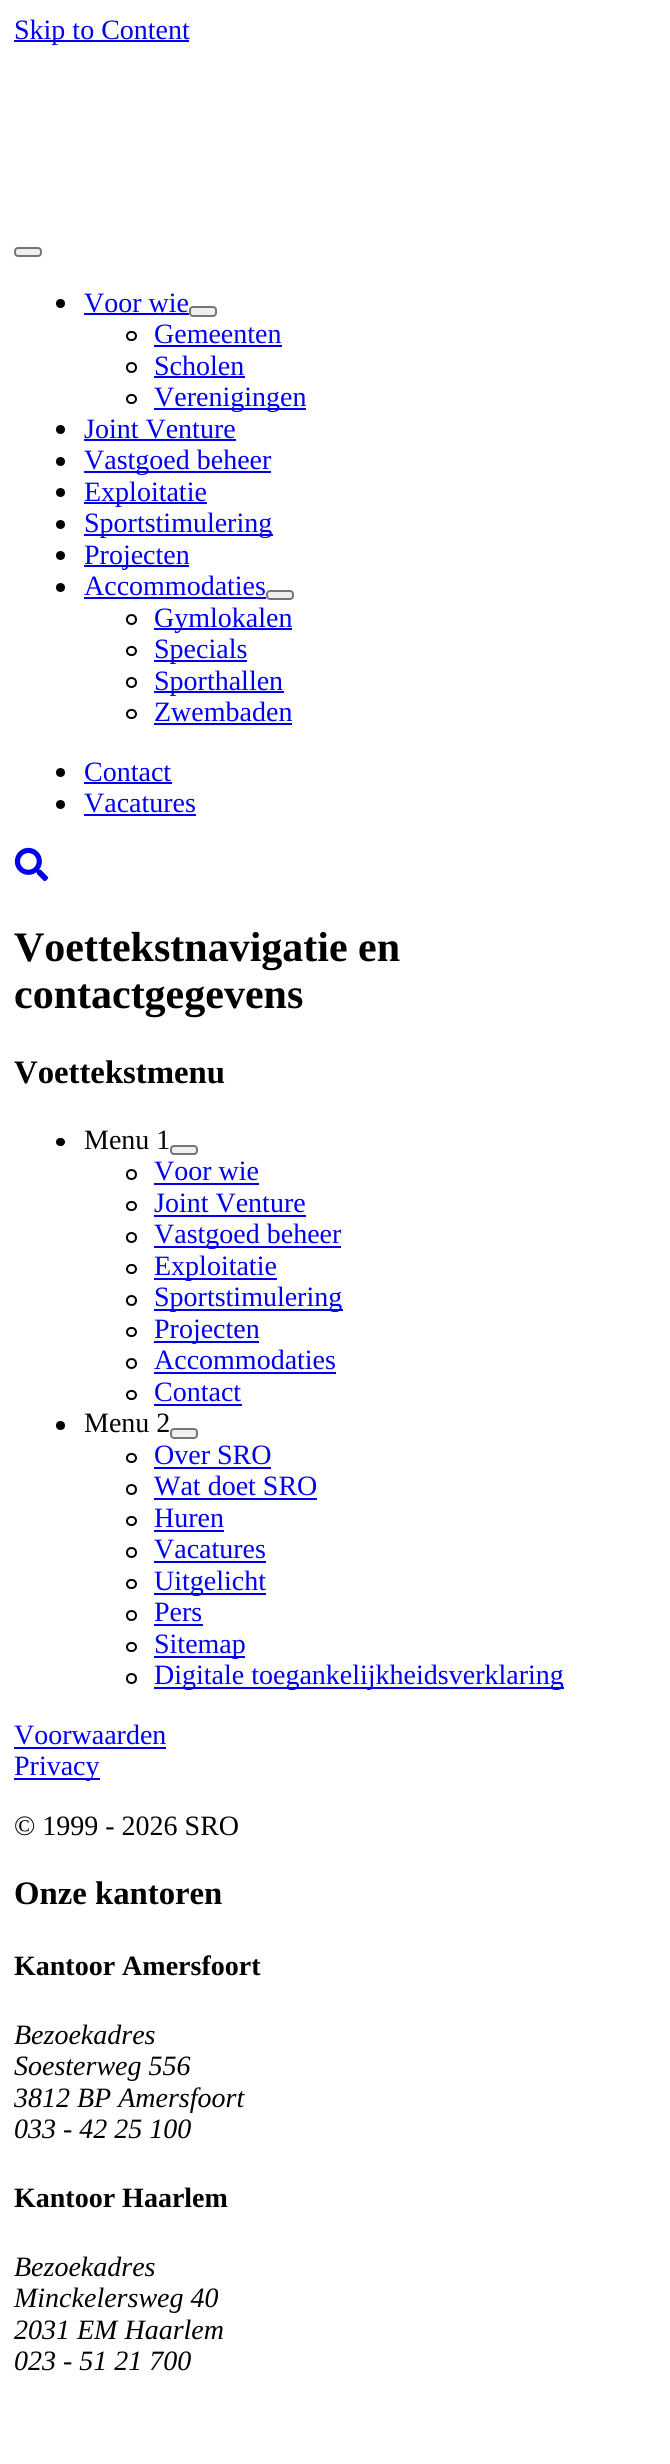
#include <cairo.h>
#include <math.h>
#include <stddef.h>

typedef struct { const char *family; double size; int italic, bold; unsigned color; } style_t;
static cairo_t *ctx;

static void ink(unsigned color) {
    cairo_set_source_rgb(ctx, (color >> 16) / 255.0, (color >> 8 & 255) / 255.0, (color & 255) / 255.0);
}

static void write(double x, double y, const char *s, const style_t *st) {
    cairo_select_font_face(ctx, st->family, st->italic ? CAIRO_FONT_SLANT_ITALIC : CAIRO_FONT_SLANT_NORMAL,
        st->bold ? CAIRO_FONT_WEIGHT_BOLD : CAIRO_FONT_WEIGHT_NORMAL);
    cairo_set_font_size(ctx, st->size);
    ink(st->color);
    cairo_move_to(ctx, x, y);
    cairo_show_text(ctx, s);
}

static void block(double x, double y, double w, double h, unsigned color) {
    ink(color);
    cairo_rectangle(ctx, x, y, w, h);
    cairo_fill(ctx);
}

static void round_path(double x, double y, double w, double h, double r) {
    cairo_new_sub_path(ctx);
    cairo_arc(ctx, x + w - r, y + h - r, r, 0, M_PI / 2);
    cairo_arc(ctx, x + r, y + h - r, r, M_PI / 2, M_PI);
    cairo_arc(ctx, x + r, y + r, r, M_PI, 1.5 * M_PI);
    cairo_arc(ctx, x + w - r, y + r, r, 1.5 * M_PI, 2 * M_PI);
    cairo_close_path(ctx);
}

static void paste(const char *path, double x, double y, double w, double h) {
    cairo_surface_t *image = cairo_image_surface_create_from_png(path);
    cairo_save(ctx);
    cairo_set_source_surface(ctx, image, x, y);
    cairo_rectangle(ctx, x, y, w, h);
    cairo_fill(ctx);
    cairo_restore(ctx);
    cairo_surface_destroy(image);
}

static const style_t s1 = {"Liberation Serif", 28, 0, 0, 0x0000ee};
static const style_t s2 = {"Liberation Serif", 42, 0, 1, 0x000000};
static const style_t s3 = {"Liberation Serif", 32.75, 0, 1, 0x000000};
static const style_t s4 = {"Liberation Serif", 28, 0, 0, 0x000000};
static const style_t s5 = {"Liberation Serif", 28, 0, 1, 0x000000};
static const style_t s6 = {"Liberation Serif", 28, 1, 0, 0x000000};

int main(void) {
    cairo_surface_t *surface = cairo_image_surface_create(CAIRO_FORMAT_RGB24, 670, 2464);
    ctx = cairo_create(surface);
    cairo_font_options_t *options = cairo_font_options_create();
    cairo_font_options_set_hint_metrics(options, CAIRO_HINT_METRICS_OFF);
    cairo_font_options_set_hint_style(options, CAIRO_HINT_STYLE_NONE);
    cairo_set_font_options(ctx, options);
    cairo_set_miter_limit(ctx, 4);
    ink(0xffffff);
    cairo_paint(ctx);
    block(14, 40, 175, 2, 0x0000ee);
    write(14, 39, "Skip to Content", &s1);
    ink(0xefefef);
    round_path(15, 248, 26, 8, 3);
    cairo_fill_preserve(ctx);
    ink(0x767676);
    cairo_stroke(ctx);
    ink(0x000000);
    cairo_arc(ctx, 60.5, 303.5, 4.5, 0, 2 * M_PI);
    cairo_fill(ctx);
    write(84, 312, "Voor wie", &s1);
    block(84, 313, 105, 2, 0x0000ee);
    ink(0xefefef);
    round_path(190, 307, 26, 9, 3);
    cairo_fill_preserve(ctx);
    ink(0x767676);
    cairo_stroke(ctx);
    round_path(127, 332, 9, 8, 4);
    ink(0x000000);
    cairo_stroke(ctx);
    write(154, 343, "Gemeenten", &s1);
    block(154, 345, 128, 2, 0x0000ee);
    cairo_new_path(ctx);
    cairo_arc(ctx, 131.5, 367.5, 4.5, 0, 2 * M_PI);
    ink(0x000000);
    cairo_stroke(ctx);
    write(154, 375, "Scholen", &s1);
    block(154, 376, 91, 2, 0x0000ee);
    round_path(127, 395, 9, 8, 4);
    ink(0x000000);
    cairo_stroke(ctx);
    block(154, 408, 152, 2, 0x0000ee);
    write(154, 406, "Verenigingen", &s1);
    ink(0x000000);
    cairo_new_path(ctx);
    cairo_arc(ctx, 60.5, 429.5, 4.5, 0, 2 * M_PI);
    cairo_fill(ctx);
    write(84, 438, "Joint Venture", &s1);
    block(84, 439, 152, 2, 0x0000ee);
    ink(0x000000);
    cairo_new_path(ctx);
    cairo_arc(ctx, 60.5, 461.5, 4.5, 0, 2 * M_PI);
    cairo_fill(ctx);
    block(84, 471, 187, 2, 0x0000ee);
    write(84, 469, "Vastgoed beheer", &s1);
    ink(0x000000);
    cairo_new_path(ctx);
    cairo_arc(ctx, 60.5, 492.5, 4.5, 0, 2 * M_PI);
    cairo_fill(ctx);
    block(84, 502, 123, 2, 0x0000ee);
    write(84, 501, "Exploitatie", &s1);
    ink(0x000000);
    cairo_new_path(ctx);
    cairo_arc(ctx, 60.5, 524.5, 4.5, 0, 2 * M_PI);
    cairo_fill(ctx);
    block(84, 534, 189, 2, 0x0000ee);
    write(84, 532, "Sportstimulering", &s1);
    ink(0x000000);
    cairo_new_path(ctx);
    cairo_arc(ctx, 60.5, 555.5, 4.5, 0, 2 * M_PI);
    cairo_fill(ctx);
    block(84, 565, 105, 2, 0x0000ee);
    write(84, 564, "Projecten", &s1);
    ink(0x000000);
    cairo_new_path(ctx);
    cairo_arc(ctx, 60.5, 587.5, 4.5, 0, 2 * M_PI);
    cairo_fill(ctx);
    write(84, 595, "Accommodaties", &s1);
    block(84, 597, 182, 2, 0x0000ee);
    ink(0xefefef);
    round_path(267, 591, 26, 8, 3);
    cairo_fill_preserve(ctx);
    ink(0x767676);
    cairo_stroke(ctx);
    cairo_arc(ctx, 131.5, 619.5, 4.5, 0, 2 * M_PI);
    ink(0x000000);
    cairo_stroke(ctx);
    block(154, 628, 138, 2, 0x0000ee);
    write(154, 627, "Gymlokalen", &s1);
    round_path(127, 647, 9, 8, 4);
    ink(0x000000);
    cairo_stroke(ctx);
    block(154, 660, 93, 2, 0x0000ee);
    write(154, 658, "Specials", &s1);
    cairo_new_path(ctx);
    cairo_arc(ctx, 131.5, 682.5, 4.5, 0, 2 * M_PI);
    ink(0x000000);
    cairo_stroke(ctx);
    block(154, 691, 130, 2, 0x0000ee);
    write(154, 690, "Sporthallen", &s1);
    round_path(127, 710, 9, 8, 4);
    ink(0x000000);
    cairo_stroke(ctx);
    write(154, 721, "Zwembaden", &s1);
    block(154, 723, 138, 2, 0x0000ee);
    ink(0x000000);
    cairo_new_path(ctx);
    cairo_arc(ctx, 60.5, 772.5, 4.5, 0, 2 * M_PI);
    cairo_fill(ctx);
    write(84, 781, "Contact", &s1);
    block(84, 782, 88, 2, 0x0000ee);
    ink(0x000000);
    cairo_new_path(ctx);
    cairo_arc(ctx, 60.5, 804.5, 4.5, 0, 2 * M_PI);
    cairo_fill(ctx);
    write(84, 812, "Vacatures", &s1);
    block(84, 814, 112, 2, 0x0000ee);
    paste("pic1.png", 14, 847, 35, 35);
    write(14, 961, "Voettekstnavigatie en", &s2);
    write(14, 1008, "contactgegevens", &s2);
    write(14, 1083, "Voettekstmenu", &s3);
    round_path(56, 1138, 9, 8, 4);
    cairo_fill(ctx);
    write(84, 1149, "Menu 1", &s4);
    ink(0xefefef);
    round_path(171, 1146, 26, 8, 3);
    cairo_fill_preserve(ctx);
    ink(0x767676);
    cairo_stroke(ctx);
    cairo_arc(ctx, 131.5, 1174.5, 4.5, 0, 2 * M_PI);
    ink(0x000000);
    cairo_stroke(ctx);
    write(154, 1180, "Voor wie", &s1);
    block(154, 1183, 105, 2, 0x0000ee);
    round_path(127, 1202, 9, 8, 4);
    ink(0x000000);
    cairo_stroke(ctx);
    write(154, 1212, "Joint Venture", &s1);
    block(154, 1215, 152, 2, 0x0000ee);
    cairo_new_path(ctx);
    cairo_arc(ctx, 131.5, 1237.5, 4.5, 0, 2 * M_PI);
    ink(0x000000);
    cairo_stroke(ctx);
    block(154, 1246, 187, 2, 0x0000ee);
    write(154, 1243, "Vastgoed beheer", &s1);
    round_path(127, 1265, 9, 8, 4);
    ink(0x000000);
    cairo_stroke(ctx);
    block(154, 1278, 123, 2, 0x0000ee);
    write(154, 1275, "Exploitatie", &s1);
    cairo_new_path(ctx);
    cairo_arc(ctx, 131.5, 1300.5, 4.5, 0, 2 * M_PI);
    ink(0x000000);
    cairo_stroke(ctx);
    block(154, 1309, 189, 2, 0x0000ee);
    write(154, 1306, "Sportstimulering", &s1);
    round_path(127, 1328, 9, 8, 4);
    ink(0x000000);
    cairo_stroke(ctx);
    block(154, 1341, 105, 2, 0x0000ee);
    write(154, 1338, "Projecten", &s1);
    cairo_new_path(ctx);
    cairo_arc(ctx, 131.5, 1363.5, 4.5, 0, 2 * M_PI);
    ink(0x000000);
    cairo_stroke(ctx);
    write(154, 1369, "Accommodaties", &s1);
    block(154, 1372, 182, 2, 0x0000ee);
    round_path(127, 1391, 9, 8, 4);
    ink(0x000000);
    cairo_stroke(ctx);
    write(154, 1401, "Contact", &s1);
    block(154, 1404, 88, 2, 0x0000ee);
    ink(0x000000);
    cairo_new_path(ctx);
    cairo_arc(ctx, 60.5, 1425.5, 4.5, 0, 2 * M_PI);
    cairo_fill(ctx);
    write(84, 1432, "Menu 2", &s4);
    ink(0xefefef);
    round_path(171, 1429, 26, 9, 3);
    cairo_fill_preserve(ctx);
    ink(0x767676);
    cairo_stroke(ctx);
    round_path(127, 1454, 9, 8, 4);
    ink(0x000000);
    cairo_stroke(ctx);
    write(154, 1464, "Over SRO", &s1);
    block(154, 1467, 117, 2, 0x0000ee);
    cairo_new_path(ctx);
    cairo_arc(ctx, 131.5, 1489.5, 4.5, 0, 2 * M_PI);
    ink(0x000000);
    cairo_stroke(ctx);
    write(154, 1495, "Wat doet SRO", &s1);
    block(154, 1498, 163, 2, 0x0000ee);
    round_path(127, 1517, 9, 8, 4);
    ink(0x000000);
    cairo_stroke(ctx);
    write(154, 1527, "Huren", &s1);
    block(154, 1530, 70, 2, 0x0000ee);
    cairo_new_path(ctx);
    cairo_arc(ctx, 131.5, 1552.5, 4.5, 0, 2 * M_PI);
    ink(0x000000);
    cairo_stroke(ctx);
    write(154, 1558, "Vacatures", &s1);
    block(154, 1561, 112, 2, 0x0000ee);
    round_path(127, 1580, 9, 8, 4);
    ink(0x000000);
    cairo_stroke(ctx);
    block(154, 1593, 112, 2, 0x0000ee);
    write(154, 1590, "Uitgelicht", &s1);
    cairo_new_path(ctx);
    cairo_arc(ctx, 131.5, 1615.5, 4.5, 0, 2 * M_PI);
    ink(0x000000);
    cairo_stroke(ctx);
    write(154, 1621, "Pers", &s1);
    block(154, 1624, 49, 2, 0x0000ee);
    round_path(127, 1643, 9, 8, 4);
    ink(0x000000);
    cairo_stroke(ctx);
    block(154, 1656, 91, 2, 0x0000ee);
    write(154, 1653, "Sitemap", &s1);
    cairo_new_path(ctx);
    cairo_arc(ctx, 131.5, 1678.5, 4.5, 0, 2 * M_PI);
    ink(0x000000);
    cairo_stroke(ctx);
    block(154, 1687, 410, 2, 0x0000ee);
    write(154, 1684, "Digitale toegankelijkheidsverklaring", &s1);
    write(14, 1744, "Voorwaarden", &s1);
    block(14, 1747, 152, 2, 0x0000ee);
    block(14, 1778, 86, 2, 0x0000ee);
    write(14, 1775, "Privacy", &s1);
    write(14, 1835, "© 1999 - 2026 SRO", &s4);
    write(14, 1904, "Onze kantoren", &s3);
    write(14, 1975, "Kantoor Amersfoort", &s5);
    write(14, 2044, "Bezoekadres", &s6);
    write(14, 2075, "Soesterweg 556", &s6);
    write(14, 2107, "3812 BP Amersfoort", &s6);
    write(14, 2138, "033 - 42 25 100", &s6);
    write(14, 2207, "Kantoor Haarlem", &s5);
    write(14, 2276, "Bezoekadres", &s6);
    write(14, 2307, "Minckelersweg 40", &s6);
    write(14, 2339, "2031 EM Haarlem", &s6);
    write(14, 2370, "023 - 51 21 700", &s6);
    cairo_surface_write_to_png(surface, "screenshot.png");
    cairo_font_options_destroy(options);
    cairo_destroy(ctx);
    cairo_surface_destroy(surface);
    return 0;
}
